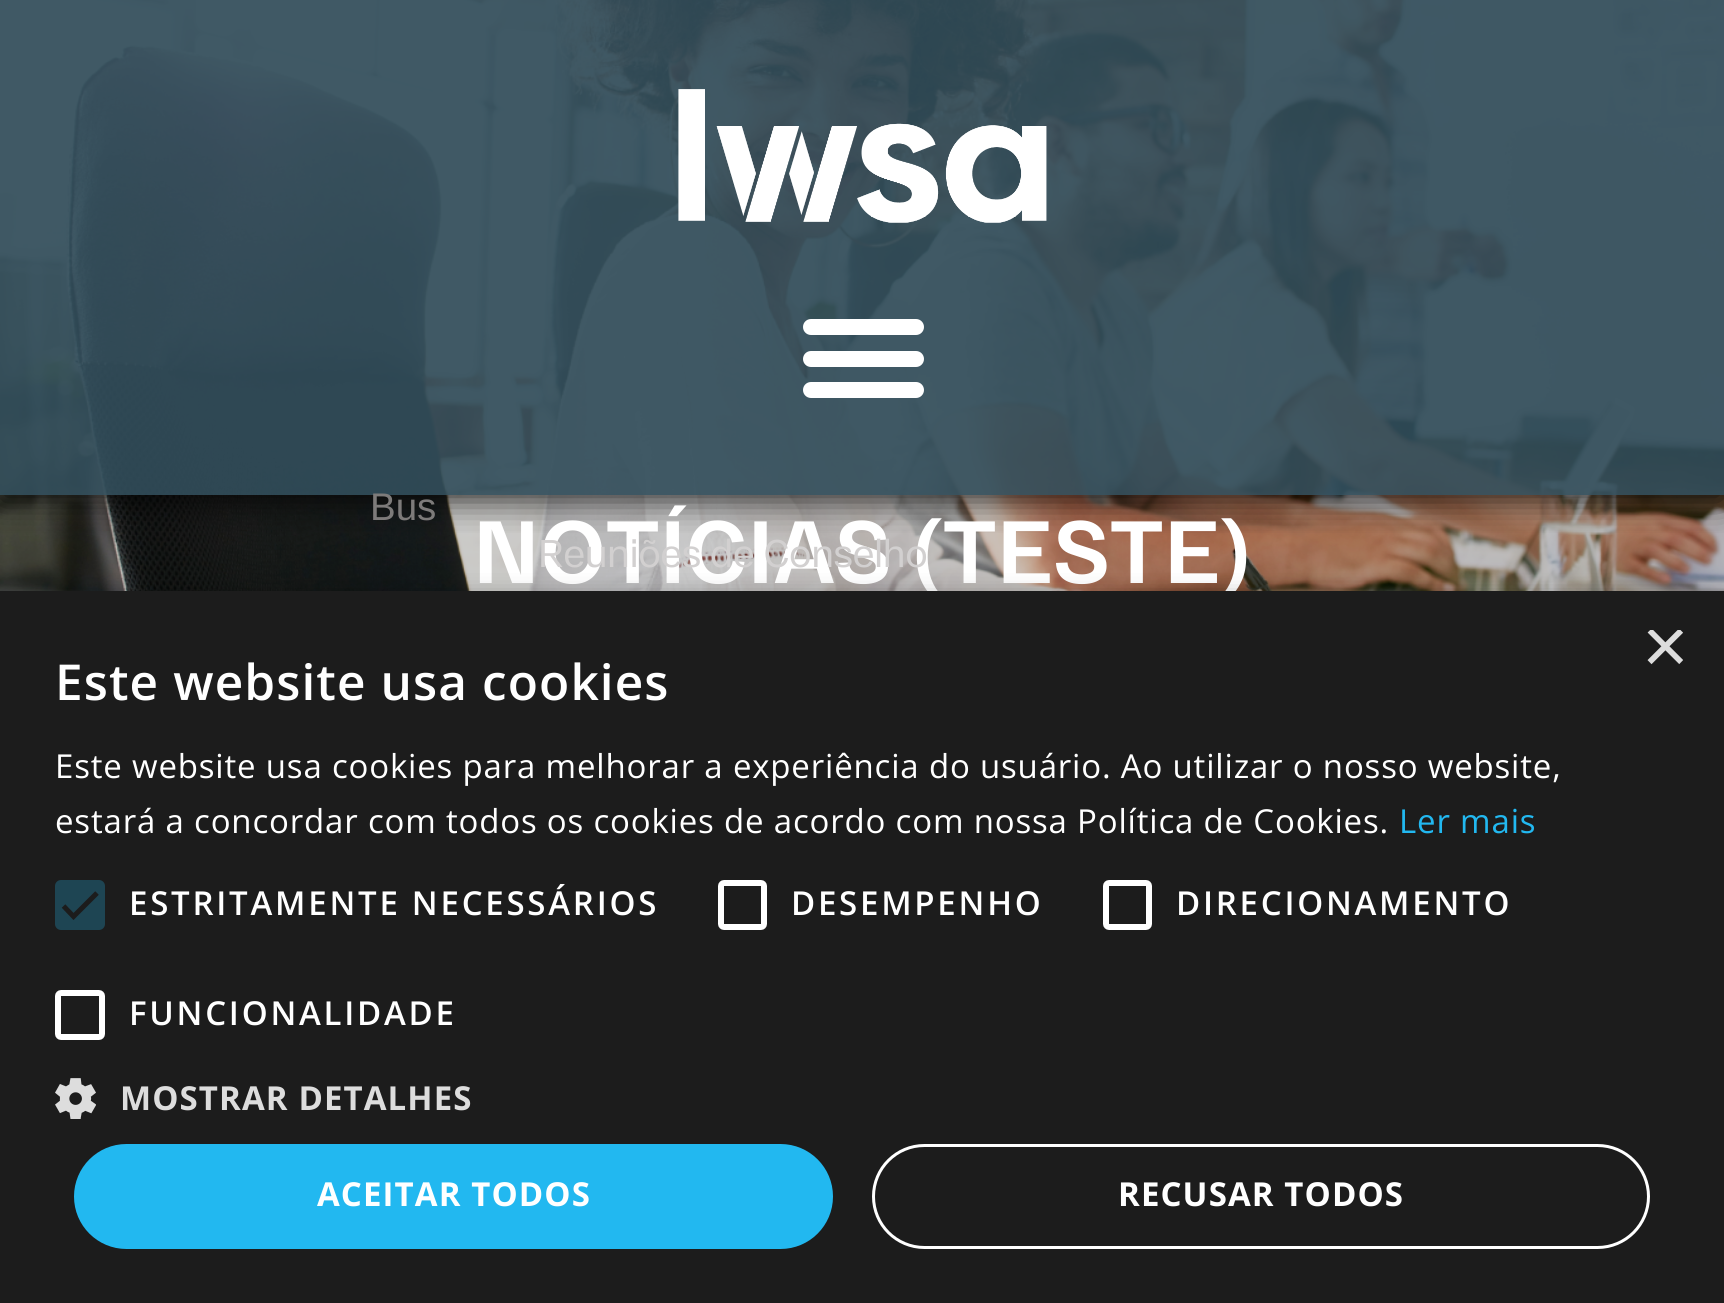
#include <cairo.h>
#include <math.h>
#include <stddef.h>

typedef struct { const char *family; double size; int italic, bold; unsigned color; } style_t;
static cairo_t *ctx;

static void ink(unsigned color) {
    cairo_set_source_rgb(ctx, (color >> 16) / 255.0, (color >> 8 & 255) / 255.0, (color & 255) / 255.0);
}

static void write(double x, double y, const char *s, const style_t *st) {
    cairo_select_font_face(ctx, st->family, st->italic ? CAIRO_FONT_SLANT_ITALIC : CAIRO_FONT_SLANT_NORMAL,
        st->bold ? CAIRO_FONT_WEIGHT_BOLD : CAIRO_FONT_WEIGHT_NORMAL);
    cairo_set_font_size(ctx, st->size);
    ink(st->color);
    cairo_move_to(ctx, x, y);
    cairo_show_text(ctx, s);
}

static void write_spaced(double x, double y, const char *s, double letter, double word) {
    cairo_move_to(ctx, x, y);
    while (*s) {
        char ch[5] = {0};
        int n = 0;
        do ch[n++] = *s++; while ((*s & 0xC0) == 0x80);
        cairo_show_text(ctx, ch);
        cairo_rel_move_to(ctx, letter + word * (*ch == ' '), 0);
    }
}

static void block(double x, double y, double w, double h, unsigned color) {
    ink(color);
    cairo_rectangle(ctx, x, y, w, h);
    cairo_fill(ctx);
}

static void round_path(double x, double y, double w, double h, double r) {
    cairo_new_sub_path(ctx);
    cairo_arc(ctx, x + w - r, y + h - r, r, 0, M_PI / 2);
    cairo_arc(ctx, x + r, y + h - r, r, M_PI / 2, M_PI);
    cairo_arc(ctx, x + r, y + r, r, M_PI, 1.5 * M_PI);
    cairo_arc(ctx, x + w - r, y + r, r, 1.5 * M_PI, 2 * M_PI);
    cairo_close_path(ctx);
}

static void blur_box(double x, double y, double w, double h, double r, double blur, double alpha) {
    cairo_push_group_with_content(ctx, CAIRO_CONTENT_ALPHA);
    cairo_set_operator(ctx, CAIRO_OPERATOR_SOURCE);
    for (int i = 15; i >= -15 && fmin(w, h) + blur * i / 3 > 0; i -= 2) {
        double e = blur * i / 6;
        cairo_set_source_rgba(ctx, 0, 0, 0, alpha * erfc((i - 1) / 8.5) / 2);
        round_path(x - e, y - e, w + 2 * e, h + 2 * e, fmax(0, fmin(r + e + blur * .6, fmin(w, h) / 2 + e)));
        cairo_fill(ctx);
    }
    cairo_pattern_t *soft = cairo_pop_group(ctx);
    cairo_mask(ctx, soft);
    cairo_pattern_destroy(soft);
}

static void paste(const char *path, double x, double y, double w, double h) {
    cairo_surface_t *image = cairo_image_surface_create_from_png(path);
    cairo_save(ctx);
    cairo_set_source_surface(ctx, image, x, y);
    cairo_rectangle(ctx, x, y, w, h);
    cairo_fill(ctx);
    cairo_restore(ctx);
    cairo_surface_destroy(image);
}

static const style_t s1 = {"Liberation Sans", 38.5, 0, 0, 0x7d7b7a};
static const style_t s2 = {"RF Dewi", 88, 0, 1, 0xffffff};
static const style_t s3 = {"RF Dewi", 38.5, 0, 0, 0xd2d0d0};
static const style_t s4 = {"Liberation Sans", 80, 0, 0, 0xdddddd};

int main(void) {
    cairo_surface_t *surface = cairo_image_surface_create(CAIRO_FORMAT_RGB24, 1724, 1303);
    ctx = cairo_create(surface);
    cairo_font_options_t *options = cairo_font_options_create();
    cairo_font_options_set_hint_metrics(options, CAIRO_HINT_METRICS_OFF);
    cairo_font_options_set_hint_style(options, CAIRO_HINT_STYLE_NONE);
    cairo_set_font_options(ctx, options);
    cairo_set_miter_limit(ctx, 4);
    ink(0xffffff);
    cairo_paint(ctx);
    paste("pic2.png", 0, 0, 1724, 591);
    cairo_save(ctx);
    cairo_rectangle(ctx, 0, 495, 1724, 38);
    cairo_clip(ctx);
    ink(0x000000);
    blur_box(0, 6, 1724, 495, 0, 16.5, 0.75);
    cairo_restore(ctx);
    cairo_set_source_rgba(ctx, 0.192, 0.302, 0.353, 0.9);
    cairo_rectangle(ctx, 0, 0, 1724, 495);
    cairo_fill(ctx);
    paste("pic1.png", 678, 89, 369, 134);
    ink(0xffffff);
    round_path(803, 319, 121, 16, 8);
    cairo_fill(ctx);
    round_path(803, 351, 121, 16, 8);
    cairo_fill(ctx);
    round_path(803, 382, 121, 16, 8);
    cairo_fill(ctx);
    write(370, 520, "Bus", &s1);
    write(473, 583, "NOTÍCIAS (TESTE)", &s2);
    write(538, 567, "Reuniões de Conselho", &s3);
    ink(0x000000);
    blur_box(3, 597, 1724, 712, 0, 11, 0.35);
    block(0, 591, 1724, 712, 0x1c1c1c);
    cairo_save(ctx);
    cairo_rectangle(ctx, 1642, 630, 41, 41);
    cairo_clip(ctx);
    write(1642, 673, "×", &s4);
    cairo_restore(ctx);
    cairo_select_font_face(ctx, "Open Sans SemiBold", CAIRO_FONT_SLANT_NORMAL, CAIRO_FONT_WEIGHT_NORMAL);
    cairo_set_font_size(ctx, 49.5);
    ink(0xffffff);
    write_spaced(55, 700, "Este website usa cookies", 1.1, 0);
    cairo_select_font_face(ctx, "Open Sans", CAIRO_FONT_SLANT_NORMAL, CAIRO_FONT_WEIGHT_NORMAL);
    cairo_set_font_size(ctx, 33);
    write_spaced(55, 778, "Este website usa cookies para melhorar a experiência do usuário. Ao utilizar o nosso website,", 0.82, 0);
    write_spaced(55, 833, "estará a concordar com todos os cookies de acordo com nossa Política de Cookies.", 0.82, 0);
    ink(0x22b8f0);
    write_spaced(1399, 833, "Ler mais", 0.82, 0);
    ink(0x1e4553);
    round_path(55, 880, 50, 50, 6);
    cairo_fill(ctx);
    cairo_new_path(ctx);
    cairo_move_to(ctx, 63.5, 906);
    cairo_line_to(ctx, 73.5, 916.5);
    cairo_line_to(ctx, 97, 893);
    ink(0x1c1c1c);
    cairo_set_line_width(ctx, 5);
    cairo_stroke(ctx);
    cairo_select_font_face(ctx, "Open Sans SemiBold", CAIRO_FONT_SLANT_NORMAL, CAIRO_FONT_WEIGHT_NORMAL);
    ink(0xffffff);
    write_spaced(129, 915, "ESTRITAMENTE NECESSÁRIOS", 2.75, 0);
    round_path(721, 883, 43, 44, 3);
    cairo_set_line_width(ctx, 6);
    cairo_stroke(ctx);
    write_spaced(791, 915, "DESEMPENHO", 2.75, 0);
    round_path(1106, 883, 43, 44, 3);
    cairo_stroke(ctx);
    write_spaced(1176, 915, "DIRECIONAMENTO", 2.75, 0);
    round_path(58, 993, 44, 44, 3);
    cairo_stroke(ctx);
    write_spaced(129, 1025, "FUNCIONALIDADE", 2.75, 0);
    paste("pic3.png", 55, 1078, 41, 41);
    cairo_select_font_face(ctx, "Open Sans", CAIRO_FONT_SLANT_NORMAL, CAIRO_FONT_WEIGHT_BOLD);
    ink(0xdddddd);
    write_spaced(120, 1110, "MOSTRAR DETALHES", 1.1, 0);
    ink(0x22b8f0);
    round_path(74, 1144, 759, 105, 52.5);
    cairo_fill(ctx);
    ink(0xffffff);
    write_spaced(317, 1206, "ACEITAR TODOS", 1.1, 0);
    round_path(873.5, 1145.5, 775, 102, 51);
    cairo_set_line_width(ctx, 3);
    cairo_stroke(ctx);
    write_spaced(1118, 1206, "RECUSAR TODOS", 1.1, 0);
    cairo_surface_write_to_png(surface, "screenshot.png");
    cairo_font_options_destroy(options);
    cairo_destroy(ctx);
    cairo_surface_destroy(surface);
    return 0;
}
